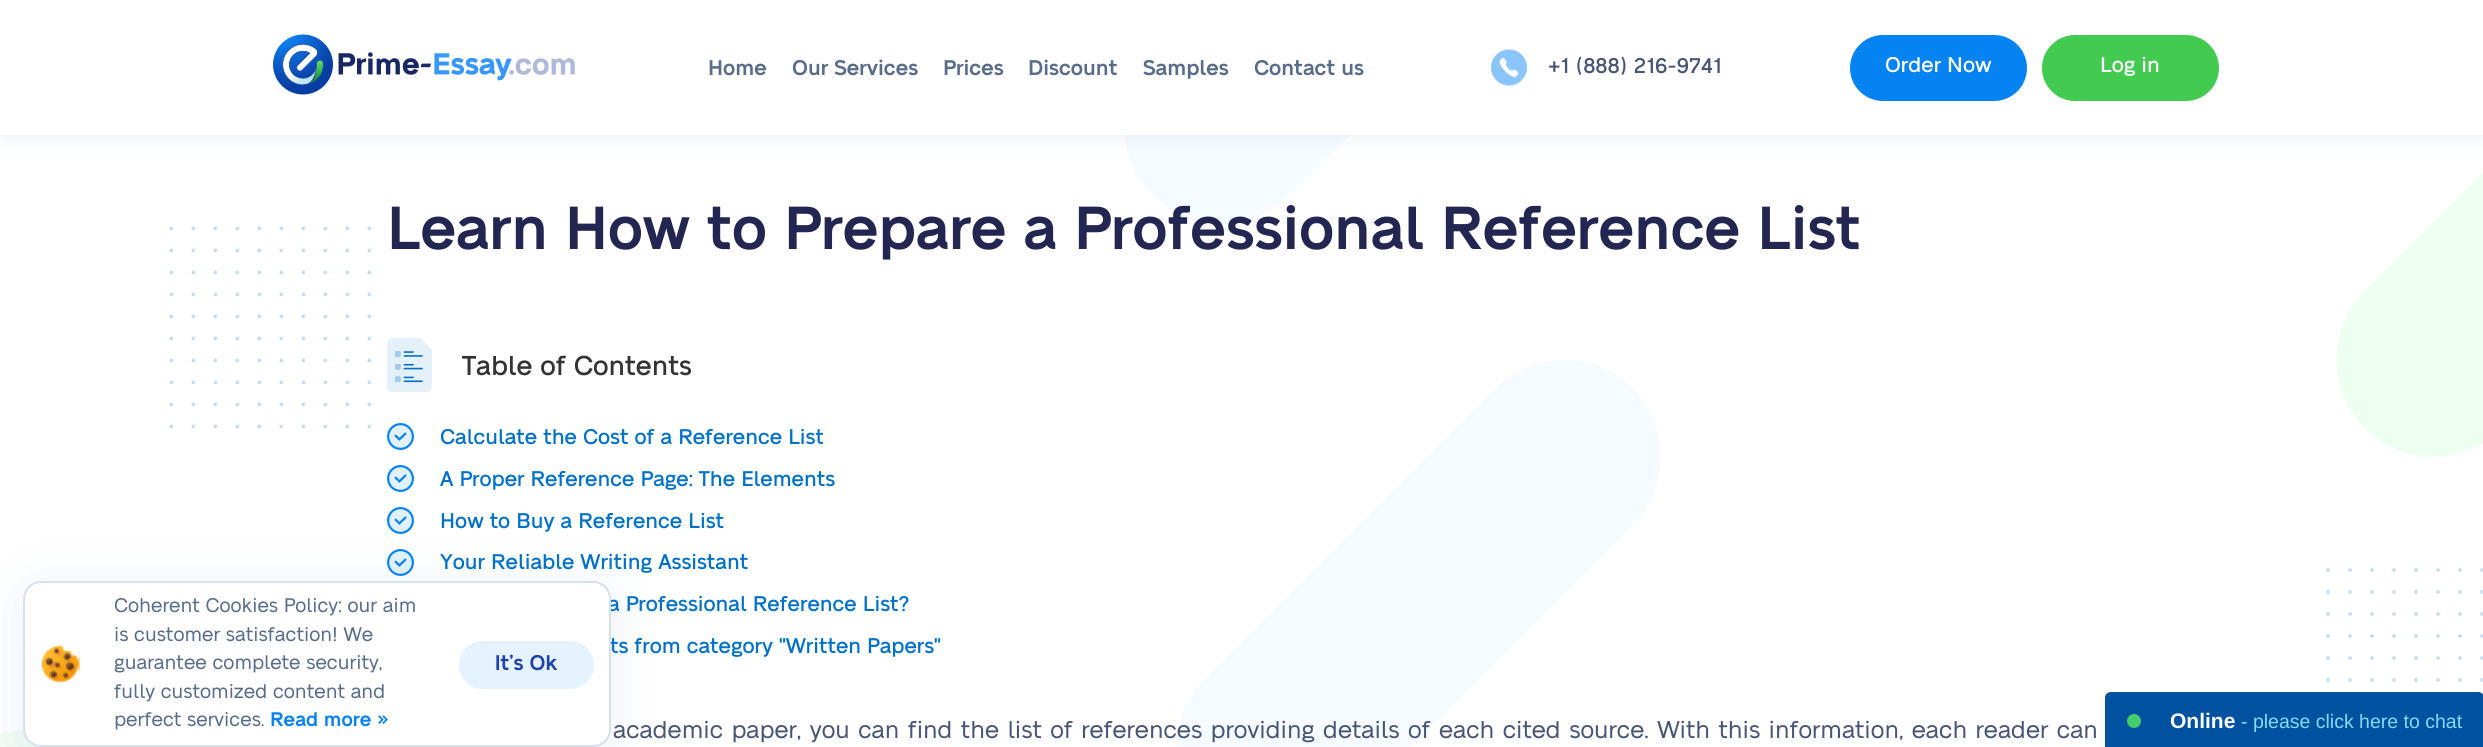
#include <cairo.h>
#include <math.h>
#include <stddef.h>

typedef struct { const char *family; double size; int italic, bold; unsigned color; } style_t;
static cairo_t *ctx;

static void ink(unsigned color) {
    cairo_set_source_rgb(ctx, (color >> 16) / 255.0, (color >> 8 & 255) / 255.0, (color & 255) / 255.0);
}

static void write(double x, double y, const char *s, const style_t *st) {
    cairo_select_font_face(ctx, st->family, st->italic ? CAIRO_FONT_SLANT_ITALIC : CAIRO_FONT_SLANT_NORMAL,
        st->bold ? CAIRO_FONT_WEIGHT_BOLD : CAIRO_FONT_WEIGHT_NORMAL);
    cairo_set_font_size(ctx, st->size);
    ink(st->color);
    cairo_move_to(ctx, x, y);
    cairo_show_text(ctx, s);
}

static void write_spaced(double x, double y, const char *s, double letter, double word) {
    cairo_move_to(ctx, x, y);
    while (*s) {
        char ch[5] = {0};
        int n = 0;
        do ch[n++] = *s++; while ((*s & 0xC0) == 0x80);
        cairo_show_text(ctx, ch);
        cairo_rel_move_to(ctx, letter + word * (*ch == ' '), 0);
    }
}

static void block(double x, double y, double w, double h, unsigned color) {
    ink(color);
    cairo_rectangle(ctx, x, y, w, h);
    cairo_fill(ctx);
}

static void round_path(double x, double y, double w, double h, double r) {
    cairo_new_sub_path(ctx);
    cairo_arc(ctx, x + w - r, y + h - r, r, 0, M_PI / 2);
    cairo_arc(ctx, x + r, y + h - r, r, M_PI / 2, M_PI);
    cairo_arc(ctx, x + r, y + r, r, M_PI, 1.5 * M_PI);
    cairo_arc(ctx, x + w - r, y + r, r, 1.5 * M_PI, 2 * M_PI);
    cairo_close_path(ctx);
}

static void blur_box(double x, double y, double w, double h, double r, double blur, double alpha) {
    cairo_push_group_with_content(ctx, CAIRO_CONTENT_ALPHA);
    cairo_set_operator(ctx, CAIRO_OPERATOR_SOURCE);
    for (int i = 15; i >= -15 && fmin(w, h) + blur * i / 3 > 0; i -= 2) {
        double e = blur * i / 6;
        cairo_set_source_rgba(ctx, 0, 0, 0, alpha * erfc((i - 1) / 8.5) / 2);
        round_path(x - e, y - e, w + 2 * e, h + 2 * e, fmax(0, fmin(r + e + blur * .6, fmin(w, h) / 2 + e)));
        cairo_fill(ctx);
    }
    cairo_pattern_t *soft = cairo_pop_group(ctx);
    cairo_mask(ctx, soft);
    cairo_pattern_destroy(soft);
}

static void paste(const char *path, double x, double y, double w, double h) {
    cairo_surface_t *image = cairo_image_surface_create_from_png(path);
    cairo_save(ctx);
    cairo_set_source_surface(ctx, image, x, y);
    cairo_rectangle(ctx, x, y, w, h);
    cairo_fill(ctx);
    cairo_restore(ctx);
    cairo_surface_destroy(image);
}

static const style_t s1 = {"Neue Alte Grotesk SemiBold", 21, 0, 0, 0x596d8b};
static const style_t s2 = {"Neue Alte Grotesk Medium", 21, 0, 0, 0x495575};
static const style_t s3 = {"Neue Alte Grotesk Medium", 21, 0, 0, 0xffffff};
static const style_t s4 = {"Neue Alte Grotesk Medium", 21, 0, 0, 0x0071c7};
static const style_t s5 = {"Neue Alte Grotesk", 19.5, 0, 0, 0x596d8b};
static const style_t s6 = {"Neue Alte Grotesk SemiBold", 19.5, 0, 0, 0x0583f2};
static const style_t s7 = {"Neue Alte Grotesk SemiBold", 21, 0, 0, 0x2142a7};
static const style_t s8 = {"Neue Alte Grotesk SemiBold", 60, 0, 0, 0x222651};
static const style_t s9 = {"Neue Alte Grotesk Medium", 27, 0, 0, 0x333333};
static const style_t s10 = {"Liberation Sans", 21, 0, 1, 0xffffff};
static const style_t s11 = {"Liberation Sans", 19.5, 0, 0, 0x84dafa};

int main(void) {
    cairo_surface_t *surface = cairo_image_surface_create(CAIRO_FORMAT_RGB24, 2483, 747);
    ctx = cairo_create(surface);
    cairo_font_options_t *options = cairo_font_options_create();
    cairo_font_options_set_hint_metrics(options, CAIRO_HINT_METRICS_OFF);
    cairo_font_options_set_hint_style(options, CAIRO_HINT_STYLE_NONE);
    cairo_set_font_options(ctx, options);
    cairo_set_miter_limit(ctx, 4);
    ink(0xffffff);
    cairo_paint(ctx);
    paste("pic4.png", 0, 135, 2483, 612);
    ink(0x798eae);
    blur_box(0, -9, 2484, 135, 0, 15, 0.3);
    block(0, 0, 2483, 135, 0xffffff);
    paste("pic1.png", 273, 34, 302, 61);
    write(708, 75, "Home", &s1);
    write(792, 75, "Our Services", &s1);
    write(943, 75, "Prices", &s1);
    write(1028, 75, "Discount", &s1);
    write(1143, 75, "Samples", &s1);
    write(1254, 75, "Contact us", &s1);
    paste("pic2.png", 1491, 49, 36, 37);
    write(1548, 73, "+1 (888) 216-9741", &s2);
    ink(0x0583f2);
    round_path(1851, 36, 175, 64, 32);
    cairo_fill_preserve(ctx);
    cairo_stroke(ctx);
    write(1885, 72, "Order Now", &s3);
    ink(0x43ca51);
    round_path(2043, 36, 175, 64, 32);
    cairo_fill_preserve(ctx);
    cairo_stroke(ctx);
    write(2100, 72, "Log in", &s3);
    paste("pic6.png", 387, 507, 27, 27);
    paste("pic6.png", 387, 549, 27, 27);
    ink(0x3d60ba);
    blur_box(23, 588, 588, 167, 18, 26, 0.1);
    write(608, 611, "a Professional Reference List?", &s4);
    write(610, 653, "ts from category \"Written Papers\"", &s4);
    ink(0xffffff);
    round_path(24, 582, 586, 164, 17);
    cairo_fill_preserve(ctx);
    ink(0xd9e0ed);
    cairo_stroke(ctx);
    paste("pic3.png", 42, 645, 38, 38);
    write(114, 612, "Coherent Cookies Policy: our aim", &s5);
    write(114, 641, "is customer satisfaction! We", &s5);
    write(114, 669, "guarantee complete security,", &s5);
    write(114, 698, "fully customized content and", &s5);
    write(114, 726, "perfect services.", &s5);
    write(270, 726, "Read more »", &s6);
    ink(0xe4f3ff);
    round_path(459, 641, 135, 48, 24);
    cairo_fill(ctx);
    write(495, 670, "It’s Ok", &s7);
    write(387, 249, "Learn How to Prepare a Professional Reference List", &s8);
    paste("pic5.png", 387, 338, 45, 54);
    write(462, 375, "Table of Contents", &s9);
    paste("pic6.png", 387, 423, 27, 27);
    write(440, 444, "Calculate the Cost of a Reference List", &s4);
    paste("pic6.png", 387, 465, 27, 27);
    write(440, 486, "A Proper Reference Page: The Elements", &s4);
    write(440, 528, "How to Buy a Reference List", &s4);
    write(440, 569, "Your Reliable Writing Assistant", &s4);
    cairo_select_font_face(ctx, "Neue Alte Grotesk", CAIRO_FONT_SLANT_NORMAL, CAIRO_FONT_WEIGHT_NORMAL);
    cairo_set_font_size(ctx, 24);
    ink(0x495575);
    write_spaced(613, 738, "academic paper, you can find the list of references providing details of each cited source. With this information, each reader can", 0, 1.4);
    ink(0x0052a0);
    cairo_new_path(ctx);
    cairo_move_to(ctx, 2111, 692);
    cairo_line_to(ctx, 2478, 692);
    cairo_curve_to(ctx, 2481.5, 692, 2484, 694.5, 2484, 698);
    cairo_line_to(ctx, 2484, 747);
    cairo_line_to(ctx, 2105, 747);
    cairo_line_to(ctx, 2105, 698);
    cairo_curve_to(ctx, 2105, 694.5, 2107.5, 692, 2111, 692);
    cairo_close_path(ctx);
    cairo_fill(ctx);
    ink(0x43cd6d);
    cairo_arc(ctx, 2134, 721, 7, 0, 2 * M_PI);
    cairo_fill(ctx);
    write(2170, 728, "Online", &s10);
    write(2241, 728, "- please click here to chat", &s11);
    cairo_surface_write_to_png(surface, "screenshot.png");
    cairo_font_options_destroy(options);
    cairo_destroy(ctx);
    cairo_surface_destroy(surface);
    return 0;
}
